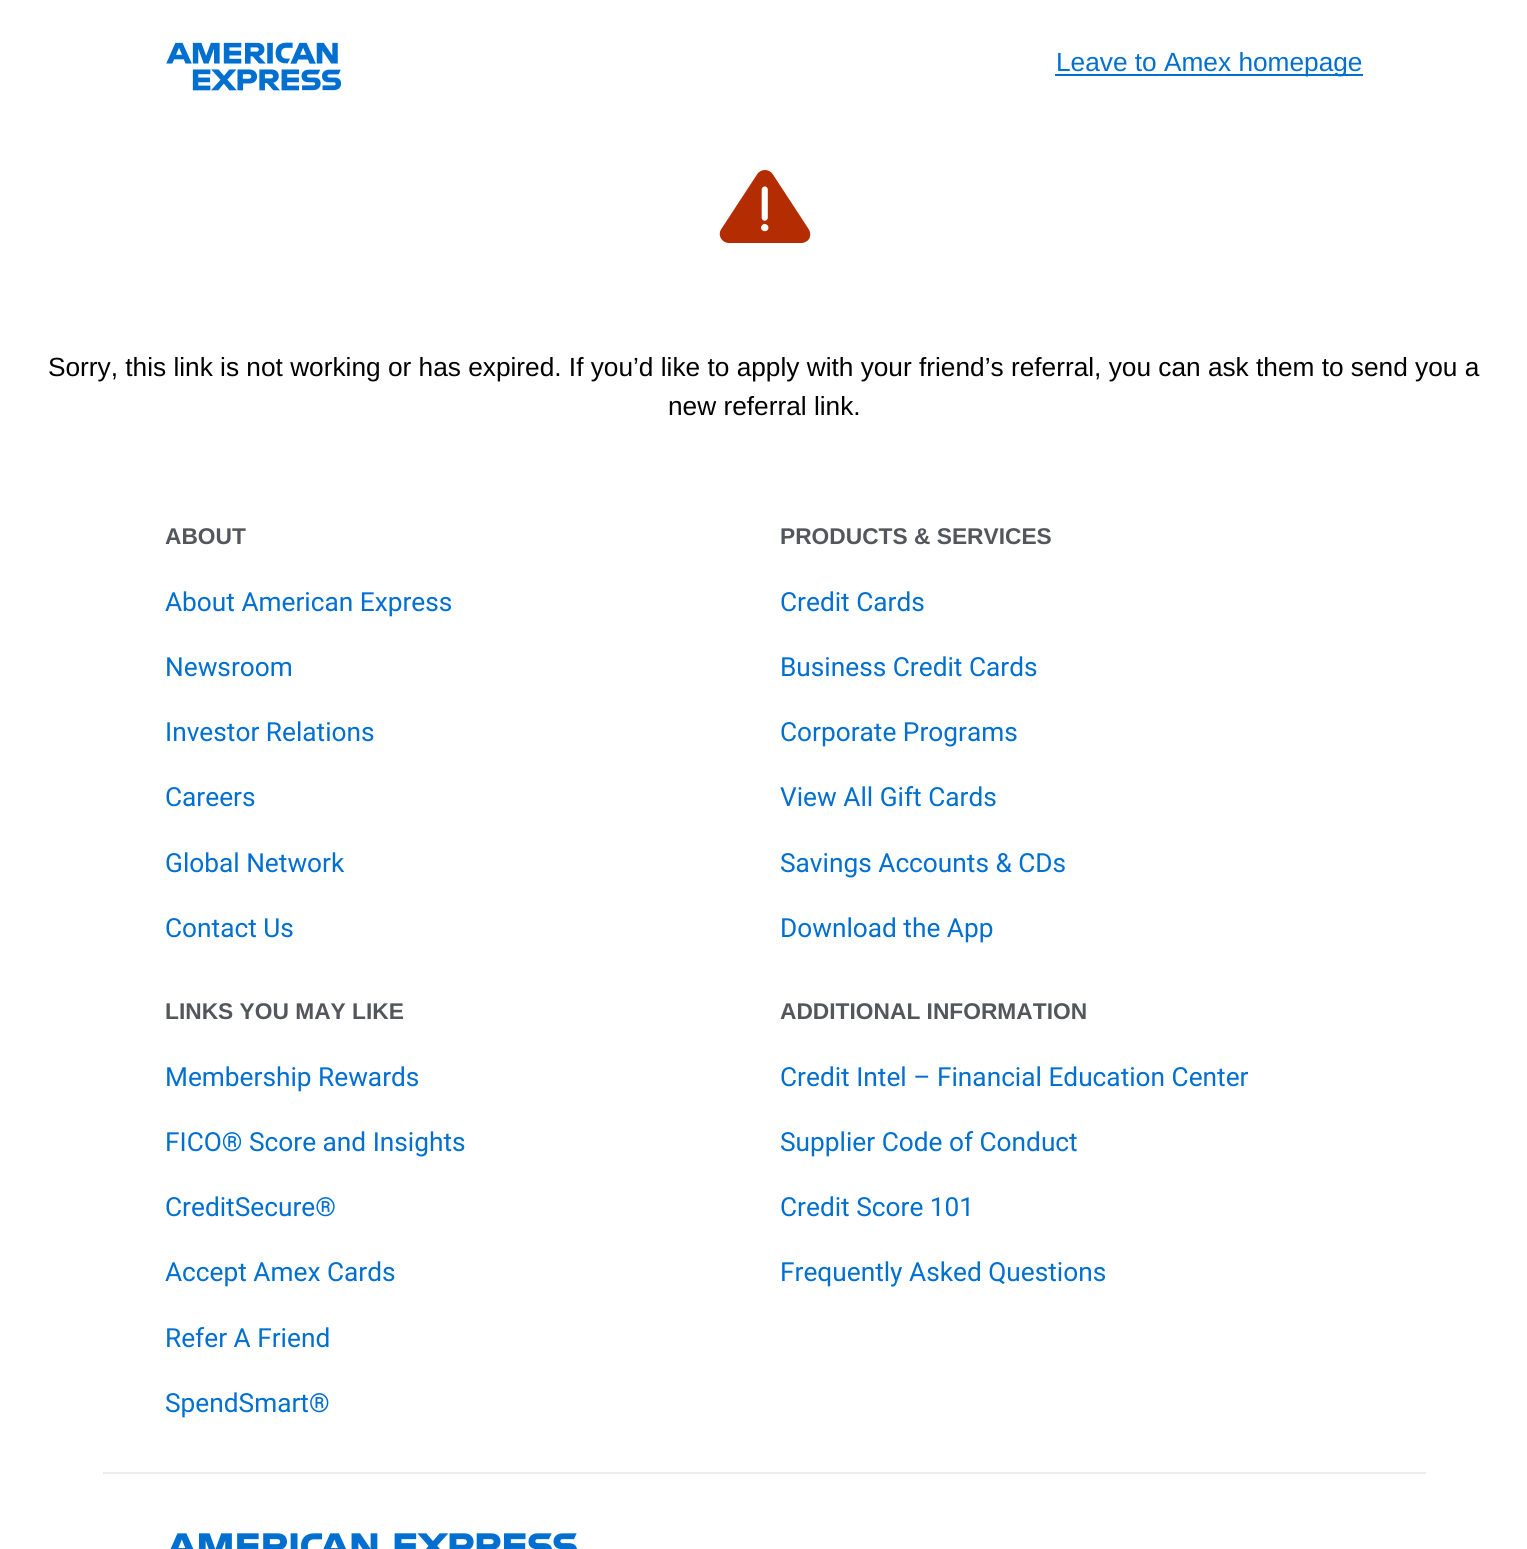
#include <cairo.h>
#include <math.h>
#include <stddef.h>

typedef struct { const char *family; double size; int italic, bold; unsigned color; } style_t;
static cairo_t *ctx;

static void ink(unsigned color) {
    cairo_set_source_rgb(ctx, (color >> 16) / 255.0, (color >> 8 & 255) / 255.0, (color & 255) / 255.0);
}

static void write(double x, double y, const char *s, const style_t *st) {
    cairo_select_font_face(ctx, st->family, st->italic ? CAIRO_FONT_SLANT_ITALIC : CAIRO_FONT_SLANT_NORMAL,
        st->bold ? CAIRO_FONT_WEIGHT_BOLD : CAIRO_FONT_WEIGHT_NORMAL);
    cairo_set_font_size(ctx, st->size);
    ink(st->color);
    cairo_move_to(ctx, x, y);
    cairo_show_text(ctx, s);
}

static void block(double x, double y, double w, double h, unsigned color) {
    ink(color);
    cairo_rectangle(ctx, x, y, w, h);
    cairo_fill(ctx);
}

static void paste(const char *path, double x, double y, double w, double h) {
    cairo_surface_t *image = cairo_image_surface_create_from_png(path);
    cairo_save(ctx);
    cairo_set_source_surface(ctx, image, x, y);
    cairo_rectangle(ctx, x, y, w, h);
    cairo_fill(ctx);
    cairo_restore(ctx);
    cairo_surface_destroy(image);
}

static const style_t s1 = {"Liberation Sans", 26.25, 0, 0, 0x006fcf};
static const style_t s2 = {"Liberation Sans", 26.25, 0, 0, 0x000000};
static const style_t s3 = {"Liberation Sans", 22.75, 0, 1, 0x53565a};
static const style_t s4 = {"Roboto", 26.25, 0, 0, 0x006fcf};

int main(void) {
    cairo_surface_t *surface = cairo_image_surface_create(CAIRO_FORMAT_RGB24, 1527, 1549);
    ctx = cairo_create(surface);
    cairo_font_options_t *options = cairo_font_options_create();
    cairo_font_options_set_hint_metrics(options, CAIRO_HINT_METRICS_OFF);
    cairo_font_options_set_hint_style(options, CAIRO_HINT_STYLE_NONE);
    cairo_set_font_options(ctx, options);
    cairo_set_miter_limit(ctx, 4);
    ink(0xffffff);
    cairo_paint(ctx);
    paste("pic1.png", 166, 42, 175, 49);
    block(1055, 74, 308, 2, 0x006fcf);
    write(1056, 71, "Leave to Amex homepage", &s1);
    paste("pic2.png", 719, 170, 92, 73);
    write(48, 376, "Sorry, this link is not working or has expired. If you’d like to apply with your friend’s referral, you can ask them to send you a", &s2);
    write(668, 415, "new referral link.", &s2);
    write(165, 544, "ABOUT", &s3);
    write(165, 611, "About American Express", &s4);
    write(165, 676, "Newsroom", &s4);
    write(165, 741, "Investor Relations", &s4);
    write(165, 806, "Careers", &s4);
    write(165, 872, "Global Network", &s4);
    write(165, 937, "Contact Us", &s4);
    write(780, 544, "PRODUCTS & SERVICES", &s3);
    write(780, 611, "Credit Cards", &s4);
    write(780, 676, "Business Credit Cards", &s4);
    write(780, 741, "Corporate Programs", &s4);
    write(780, 806, "View All Gift Cards", &s4);
    write(780, 872, "Savings Accounts & CDs", &s4);
    write(780, 937, "Download the App", &s4);
    write(165, 1019, "LINKS YOU MAY LIKE", &s3);
    write(165, 1086, "Membership Rewards", &s4);
    write(165, 1151, "FICO® Score and Insights", &s4);
    write(165, 1216, "CreditSecure®", &s4);
    write(165, 1281, "Accept Amex Cards", &s4);
    write(165, 1347, "Refer A Friend", &s4);
    write(165, 1412, "SpendSmart®", &s4);
    write(780, 1019, "ADDITIONAL INFORMATION", &s3);
    write(780, 1086, "Credit Intel – Financial Education Center", &s4);
    write(780, 1151, "Supplier Code of Conduct", &s4);
    write(780, 1216, "Credit Score 101", &s4);
    write(780, 1281, "Frequently Asked Questions", &s4);
    block(103, 1472, 1323, 2, 0xecedee);
    paste("pic3.png", 170, 1533, 407, 16);
    cairo_surface_write_to_png(surface, "screenshot.png");
    cairo_font_options_destroy(options);
    cairo_destroy(ctx);
    cairo_surface_destroy(surface);
    return 0;
}
